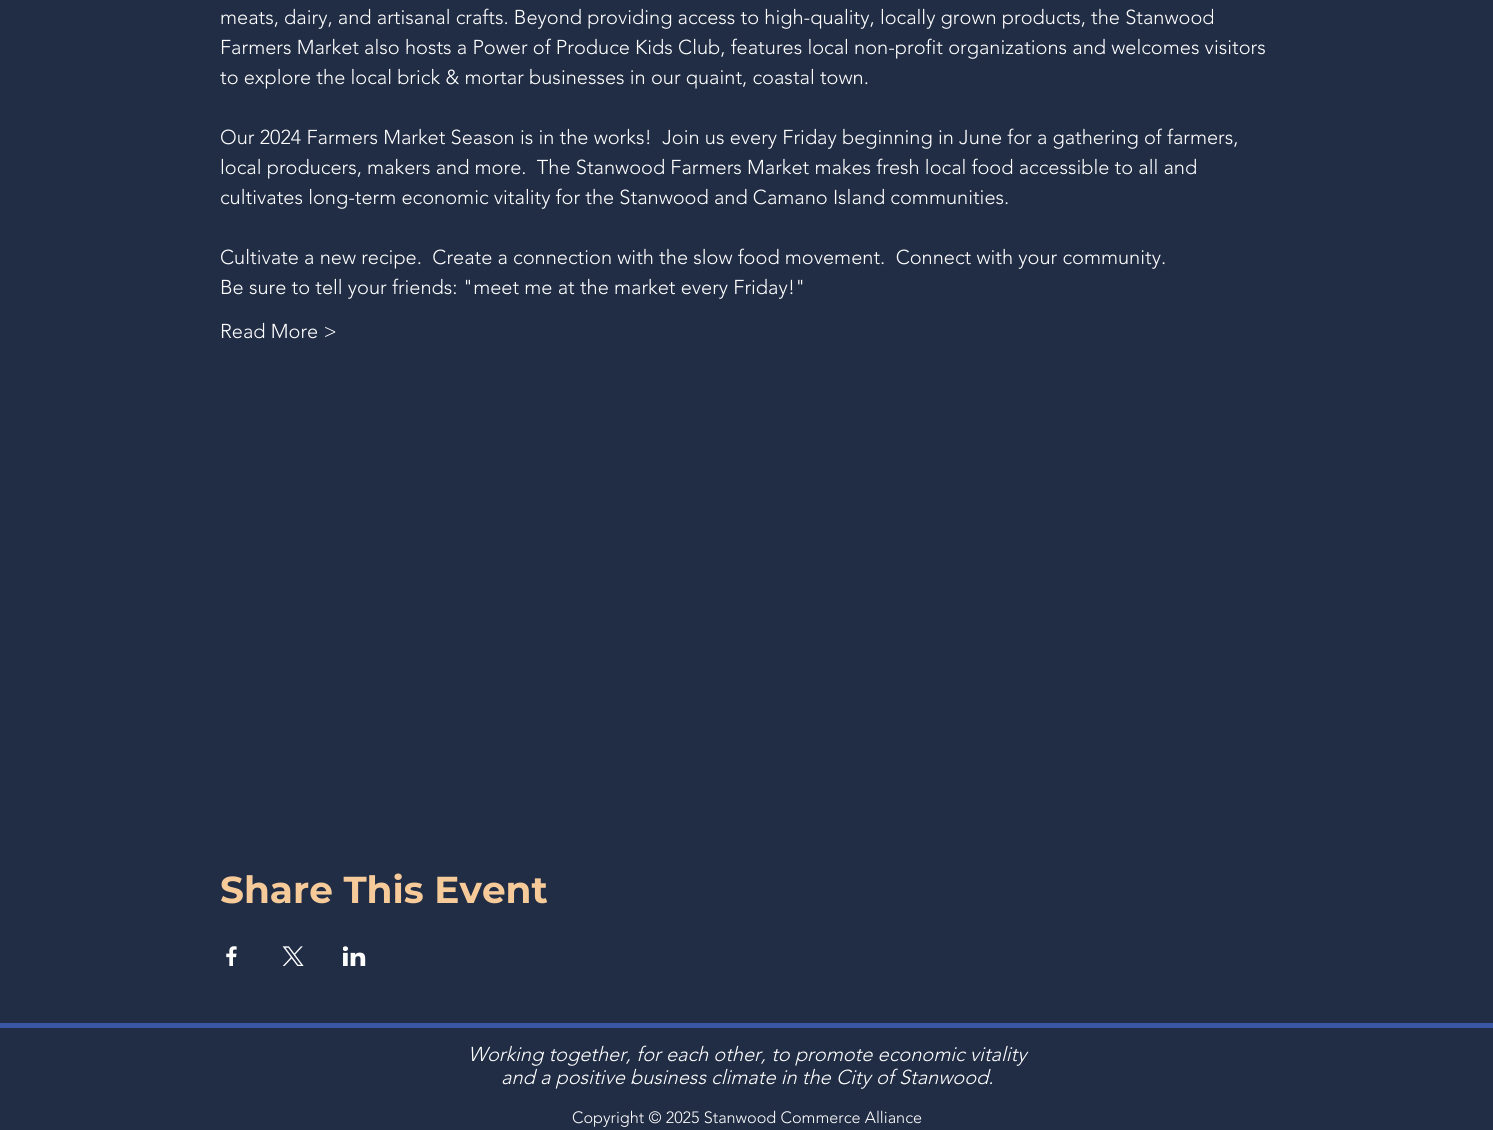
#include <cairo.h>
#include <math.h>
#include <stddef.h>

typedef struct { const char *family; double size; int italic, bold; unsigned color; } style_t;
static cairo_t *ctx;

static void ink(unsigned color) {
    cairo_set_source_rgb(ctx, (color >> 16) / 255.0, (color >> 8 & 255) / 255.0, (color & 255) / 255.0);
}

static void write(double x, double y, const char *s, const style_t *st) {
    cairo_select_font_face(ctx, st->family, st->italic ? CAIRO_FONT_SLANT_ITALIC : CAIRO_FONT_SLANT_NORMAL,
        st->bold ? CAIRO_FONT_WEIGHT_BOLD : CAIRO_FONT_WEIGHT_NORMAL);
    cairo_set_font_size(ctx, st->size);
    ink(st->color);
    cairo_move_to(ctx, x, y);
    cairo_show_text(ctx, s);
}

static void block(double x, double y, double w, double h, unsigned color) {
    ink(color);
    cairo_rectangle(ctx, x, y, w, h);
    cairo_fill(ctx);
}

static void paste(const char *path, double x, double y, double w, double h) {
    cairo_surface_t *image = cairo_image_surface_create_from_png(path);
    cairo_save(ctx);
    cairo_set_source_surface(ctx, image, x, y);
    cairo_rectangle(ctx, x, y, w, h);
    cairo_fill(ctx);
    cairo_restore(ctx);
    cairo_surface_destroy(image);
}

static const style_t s1 = {"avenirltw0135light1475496 Light", 20, 0, 0, 0xffffff};
static const style_t s2 = {"Montserrat", 37.5, 0, 1, 0xf7cb99};
static const style_t s3 = {"avenirltw0135light1475496 Light", 20, 1, 0, 0xffffff};
static const style_t s4 = {"avenirltw0135light1475496 Light", 16.25, 0, 0, 0xffffff};

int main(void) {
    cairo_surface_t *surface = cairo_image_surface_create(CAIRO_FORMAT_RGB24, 1493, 1130);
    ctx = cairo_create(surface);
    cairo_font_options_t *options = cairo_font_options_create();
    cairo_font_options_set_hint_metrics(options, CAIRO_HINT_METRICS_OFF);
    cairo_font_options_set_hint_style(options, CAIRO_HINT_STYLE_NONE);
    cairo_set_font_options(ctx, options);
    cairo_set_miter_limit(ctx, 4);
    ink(0x3a57a6);
    cairo_paint(ctx);
    block(0, 0, 1493, 1023, 0x212d45);
    write(220, 24, "meats, dairy, and artisanal crafts. Beyond providing access to high-quality, locally grown products, the Stanwood", &s1);
    write(220, 54, "Farmers Market also hosts a Power of Produce Kids Club, features local non-profit organizations and welcomes visitors", &s1);
    write(220, 84, "to explore the local brick & mortar businesses in our quaint, coastal town.", &s1);
    write(220, 144, "Our 2024 Farmers Market Season is in the works!  Join us every Friday beginning in June for a gathering of farmers,", &s1);
    write(220, 174, "local producers, makers and more.  The Stanwood Farmers Market makes fresh local food accessible to all and", &s1);
    write(220, 204, "cultivates long-term economic vitality for the Stanwood and Camano Island communities.", &s1);
    write(220, 264, "Cultivate a new recipe.  Create a connection with the slow food movement.  Connect with your community.", &s1);
    write(220, 294, "Be sure to tell your friends: \"meet me at the market every Friday!\"", &s1);
    write(220, 338, "Read More >", &s1);
    write(220, 903, "Share This Event", &s2);
    paste("pic1.png", 226, 946, 11, 20);
    paste("pic2.png", 282, 946, 22, 20);
    paste("pic3.png", 343, 946, 23, 20);
    block(0, 1028, 1493, 102, 0x212d45);
    write(468, 1061, "Working together, for each other, to promote economic vitality", &s3);
    write(501, 1084, "and a positive business climate in the City of Stanwood.", &s3);
    write(572, 1123, "Copyright © 2025 Stanwood Commerce Alliance", &s4);
    cairo_surface_write_to_png(surface, "screenshot.png");
    cairo_font_options_destroy(options);
    cairo_destroy(ctx);
    cairo_surface_destroy(surface);
    return 0;
}
